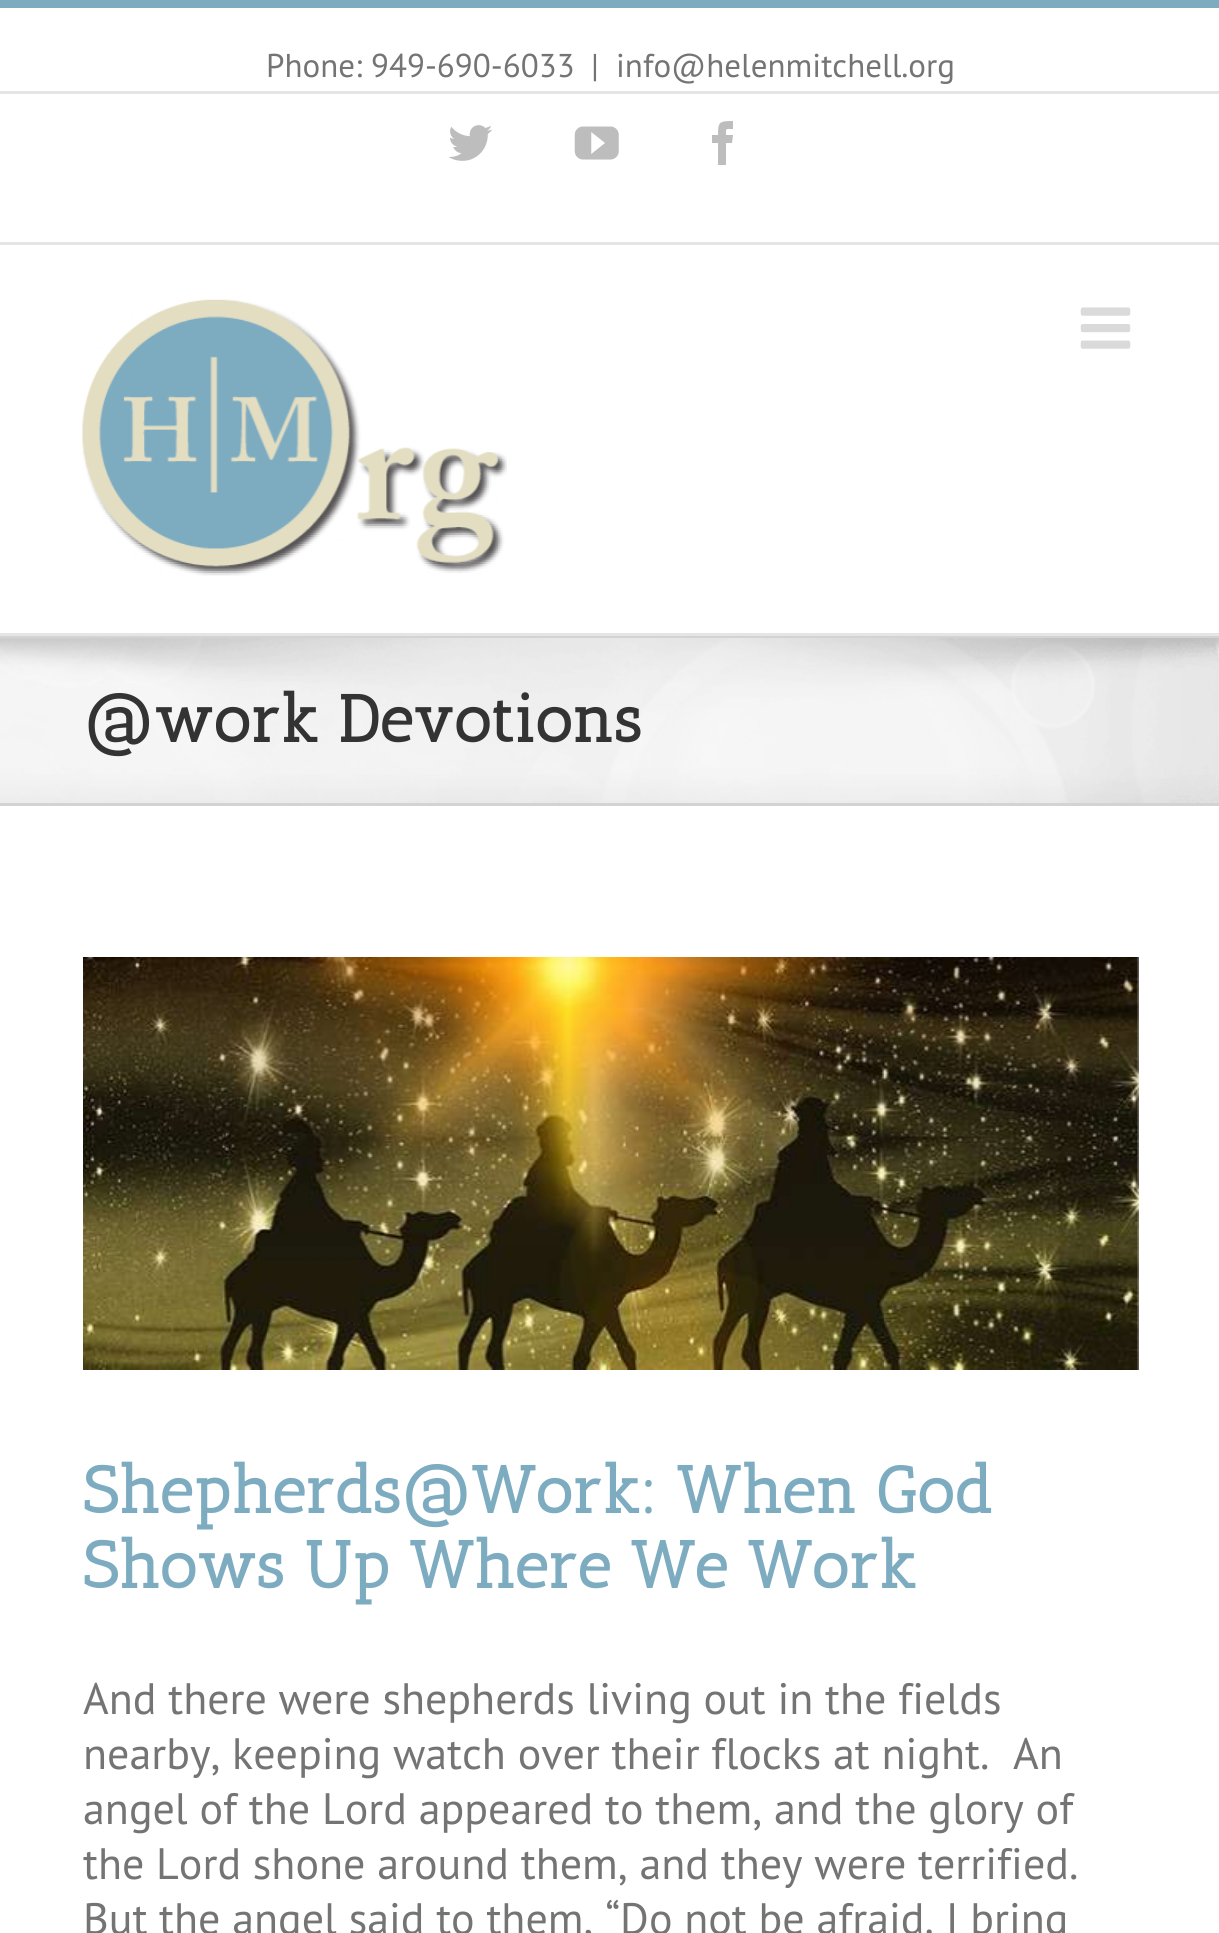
#include <cairo.h>
#include <math.h>
#include <stddef.h>

typedef struct { const char *family; double size; int italic, bold; unsigned color; } style_t;
static cairo_t *ctx;

static void ink(unsigned color) {
    cairo_set_source_rgb(ctx, (color >> 16) / 255.0, (color >> 8 & 255) / 255.0, (color & 255) / 255.0);
}

static void write(double x, double y, const char *s, const style_t *st) {
    cairo_select_font_face(ctx, st->family, st->italic ? CAIRO_FONT_SLANT_ITALIC : CAIRO_FONT_SLANT_NORMAL,
        st->bold ? CAIRO_FONT_WEIGHT_BOLD : CAIRO_FONT_WEIGHT_NORMAL);
    cairo_set_font_size(ctx, st->size);
    ink(st->color);
    cairo_move_to(ctx, x, y);
    cairo_show_text(ctx, s);
}

static void block(double x, double y, double w, double h, unsigned color) {
    ink(color);
    cairo_rectangle(ctx, x, y, w, h);
    cairo_fill(ctx);
}

static void paste(const char *path, double x, double y, double w, double h) {
    cairo_surface_t *image = cairo_image_surface_create_from_png(path);
    cairo_save(ctx);
    cairo_set_source_surface(ctx, image, x, y);
    cairo_rectangle(ctx, x, y, w, h);
    cairo_fill(ctx);
    cairo_restore(ctx);
    cairo_surface_destroy(image);
}

static const style_t s1 = {"PT Sans", 33, 0, 0, 0x747474};
static const style_t s2 = {"Antic Slab", 66, 0, 1, 0x333333};
static const style_t s3 = {"Antic Slab", 66, 0, 1, 0x7dacc1};
static const style_t s4 = {"PT Sans", 44, 0, 0, 0x747474};

int main(void) {
    cairo_surface_t *surface = cairo_image_surface_create(CAIRO_FORMAT_RGB24, 1219, 1933);
    ctx = cairo_create(surface);
    cairo_font_options_t *options = cairo_font_options_create();
    cairo_font_options_set_hint_metrics(options, CAIRO_HINT_METRICS_OFF);
    cairo_font_options_set_hint_style(options, CAIRO_HINT_STYLE_NONE);
    cairo_set_font_options(ctx, options);
    cairo_set_miter_limit(ctx, 4);
    ink(0xffffff);
    cairo_paint(ctx);
    block(0, 0, 1219, 8, 0x7dacc1);
    block(0, 242, 1219, 3, 0xe5e5e5);
    block(0, 91, 1219, 3, 0xe5e5e5);
    write(266, 77, "Phone: 949-690-6033", &s1);
    write(591, 77, "|", &s1);
    write(616, 77, "info@helenmitchell.org", &s1);
    paste("pic1.png", 448, 125, 44, 36);
    paste("pic2.png", 574, 126, 45, 34);
    ink(0xbebdbd);
    cairo_new_path(ctx);
    cairo_move_to(ctx, 726, 165);
    cairo_line_to(ctx, 718, 165);
    cairo_line_to(ctx, 718, 143);
    cairo_line_to(ctx, 712, 143);
    cairo_line_to(ctx, 712, 135);
    cairo_line_to(ctx, 718, 135);
    cairo_curve_to(ctx, 718, 122, 719, 121, 733, 121);
    cairo_line_to(ctx, 733, 129);
    cairo_curve_to(ctx, 725, 129, 726, 128, 726, 135);
    cairo_line_to(ctx, 733, 135);
    cairo_line_to(ctx, 732, 143);
    cairo_line_to(ctx, 726, 143);
    cairo_close_path(ctx);
    cairo_fill(ctx);
    block(0, 633, 1219, 3, 0xe5e5e5);
    paste("pic3.png", 82, 299, 425, 277);
    paste("pic4.png", 1080, 307, 51, 42);
    block(0, 638, 1219, 165, 0xf6f6f6);
    paste("pic5.png", 0, 638, 1219, 165);
    block(0, 636, 1219, 2, 0xd2d3d4);
    block(0, 803, 1219, 3, 0xd2d3d4);
    write(83, 742, "@work Devotions", &s2);
    paste("pic6.png", 83, 957, 1056, 413);
    write(83, 1513, "Shepherds@Work: When God", &s3);
    write(83, 1588, "Shows Up Where We Work", &s3);
    write(83, 1714, "And there were shepherds living out in the fields", &s4);
    write(83, 1769, "nearby, keeping watch over their flocks at night.  An", &s4);
    write(83, 1824, "angel of the Lord appeared to them, and the glory of", &s4);
    write(83, 1879, "the Lord shone around them, and they were terrified.", &s4);
    write(83, 1934, "But the angel said to them, “Do not be afraid. I bring", &s4);
    cairo_surface_write_to_png(surface, "screenshot.png");
    cairo_font_options_destroy(options);
    cairo_destroy(ctx);
    cairo_surface_destroy(surface);
    return 0;
}
